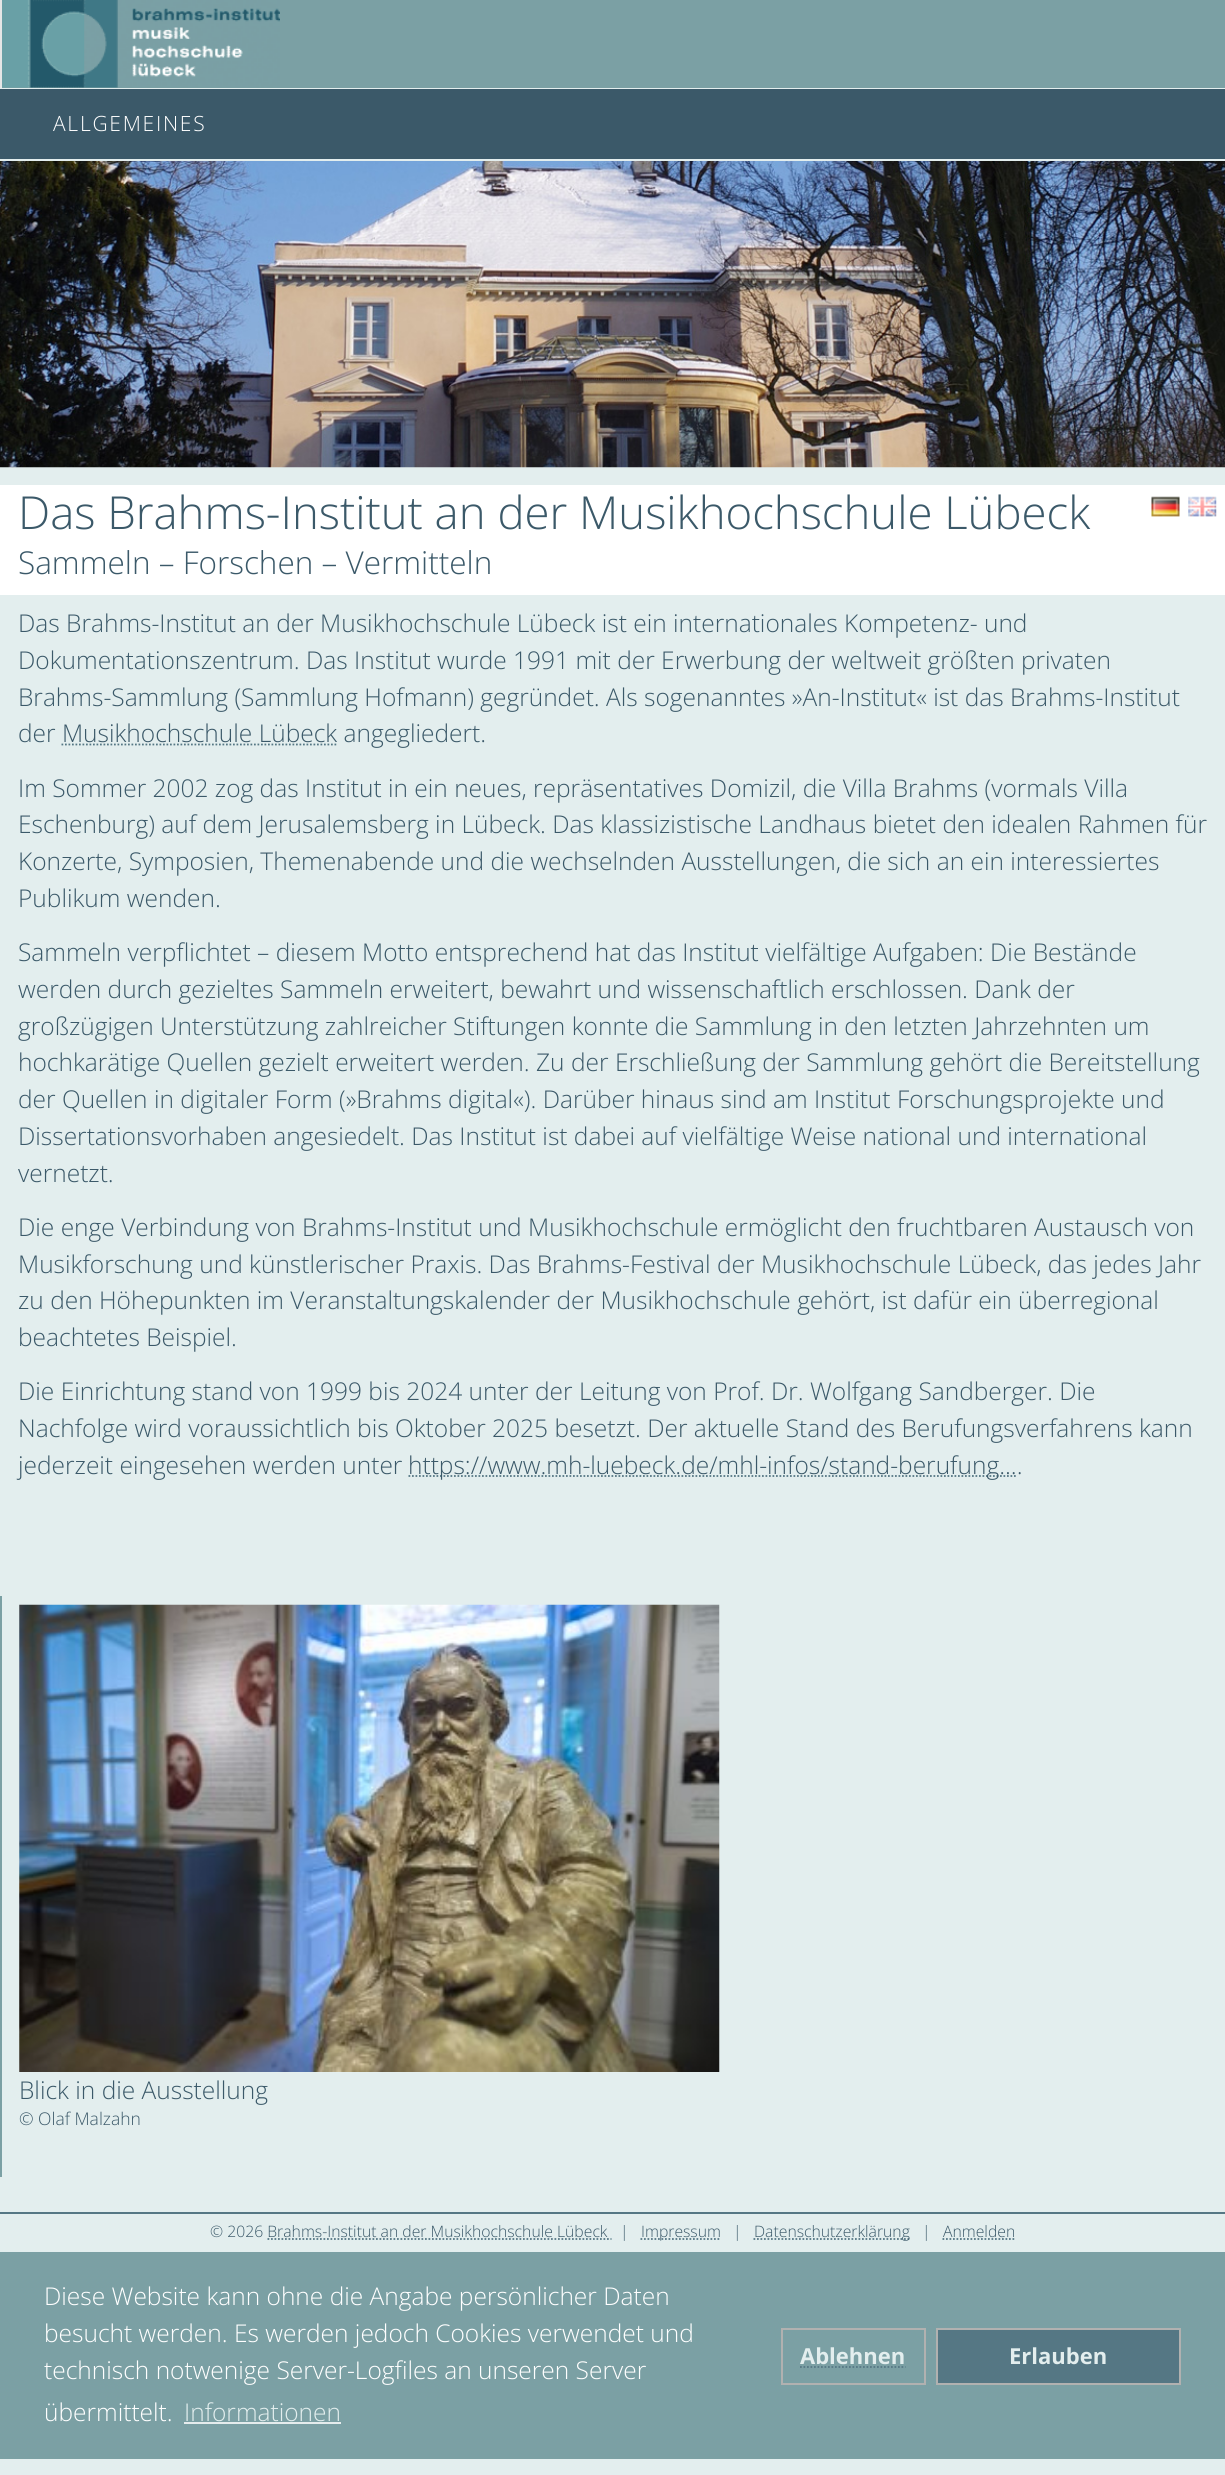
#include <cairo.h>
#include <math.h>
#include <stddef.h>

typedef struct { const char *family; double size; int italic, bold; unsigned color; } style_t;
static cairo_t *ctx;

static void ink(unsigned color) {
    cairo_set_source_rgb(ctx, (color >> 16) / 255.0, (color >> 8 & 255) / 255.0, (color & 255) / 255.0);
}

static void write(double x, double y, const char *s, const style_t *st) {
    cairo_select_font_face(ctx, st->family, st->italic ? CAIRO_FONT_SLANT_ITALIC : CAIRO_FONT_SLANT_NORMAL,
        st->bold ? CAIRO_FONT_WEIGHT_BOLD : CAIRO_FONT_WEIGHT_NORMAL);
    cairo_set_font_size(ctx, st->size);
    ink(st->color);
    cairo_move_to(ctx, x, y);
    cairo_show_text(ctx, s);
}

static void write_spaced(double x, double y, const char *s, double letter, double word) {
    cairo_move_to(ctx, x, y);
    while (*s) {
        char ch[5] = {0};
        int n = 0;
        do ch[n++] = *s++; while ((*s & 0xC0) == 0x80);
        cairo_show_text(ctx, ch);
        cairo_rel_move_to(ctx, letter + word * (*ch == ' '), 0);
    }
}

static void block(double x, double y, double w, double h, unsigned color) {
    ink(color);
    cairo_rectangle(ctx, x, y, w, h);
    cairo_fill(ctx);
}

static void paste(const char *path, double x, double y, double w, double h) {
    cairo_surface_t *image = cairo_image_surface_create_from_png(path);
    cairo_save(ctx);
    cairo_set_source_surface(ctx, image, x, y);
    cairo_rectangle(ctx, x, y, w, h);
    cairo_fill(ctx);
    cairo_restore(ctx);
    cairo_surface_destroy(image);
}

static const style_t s1 = {"Open Sans Light", 45.5, 0, 0, 0x3b5969};
static const style_t s2 = {"Open Sans Light", 31.5, 0, 0, 0x3b5969};
static const style_t s3 = {"Open Sans Light", 24.5, 0, 0, 0x3b5969};
static const style_t s4 = {"Open Sans Light", 17.5, 0, 0, 0x3b5969};
static const style_t s5 = {"Open Sans Light", 15.75, 0, 0, 0x3b5969};
static const style_t s6 = {"Open Sans Light", 24.5, 0, 0, 0xffffff};
static const style_t s7 = {"Open Sans Light", 24.5, 0, 0, 0xe3eeee};
static const style_t s8 = {"Open Sans", 22, 0, 1, 0xe3eeee};

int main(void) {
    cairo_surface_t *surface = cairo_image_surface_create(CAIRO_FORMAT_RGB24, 1225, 2475);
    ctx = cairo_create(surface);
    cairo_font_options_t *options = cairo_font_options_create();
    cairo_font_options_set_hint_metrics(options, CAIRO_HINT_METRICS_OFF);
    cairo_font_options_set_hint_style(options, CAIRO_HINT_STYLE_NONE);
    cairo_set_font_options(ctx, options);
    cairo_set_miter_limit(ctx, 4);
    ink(0xe3eeee);
    cairo_paint(ctx);
    block(2, 0, 1223, 88, 0x7ba0a4);
    paste("pic1.png", 2, 0, 278, 88);
    block(0, 0, 2, 88, 0xe6e6e6);
    block(0, 89, 1225, 70, 0x3b5969);
    cairo_select_font_face(ctx, "Open Sans Light", CAIRO_FONT_SLANT_NORMAL, CAIRO_FONT_WEIGHT_NORMAL);
    cairo_set_font_size(ctx, 21);
    ink(0xffffff);
    write_spaced(53, 131, "ALLGEMEINES", 1.75, 0);
    paste("pic2.png", 0, 161, 1225, 307);
    block(0, 485, 1225, 110, 0xffffff);
    write(18, 529, "Das Brahms-Institut an der Musikhochschule Lübeck", &s1);
    paste("pic3.png", 1151, 496, 29, 21);
    paste("pic4.png", 1188, 496, 29, 21);
    write(18, 574, "Sammeln – Forschen – Vermitteln", &s2);
    write(18, 632, "Das Brahms-Institut an der Musikhochschule Lübeck ist ein internationales Kompetenz- und", &s3);
    write(18, 669, "Dokumentationszentrum. Das Institut wurde 1991 mit der Erwerbung der weltweit größten privaten", &s3);
    write(18, 706, "Brahms-Sammlung (Sammlung Hofmann) gegründet. Als sogenanntes »An-Institut« ist das Brahms-Institut", &s3);
    write(18, 742, "der Musikhochschule Lübeck angegliedert.", &s3);
    cairo_new_path(ctx);
    cairo_move_to(ctx, 61.5, 744.5);
    cairo_line_to(ctx, 336.5, 744.5);
    ink(0x557784);
    cairo_set_line_width(ctx, 1.8);
    cairo_set_dash(ctx, (double[]){1.75, 1.75}, 2, 0);
    cairo_stroke(ctx);
    write(18, 797, "Im Sommer 2002 zog das Institut in ein neues, repräsentatives Domizil, die Villa Brahms (vormals Villa", &s3);
    write(18, 833, "Eschenburg) auf dem Jerusalemsberg in Lübeck. Das klassizistische Landhaus bietet den idealen Rahmen für", &s3);
    write(18, 870, "Konzerte, Symposien, Themenabende und die wechselnden Ausstellungen, die sich an ein interessiertes", &s3);
    write(18, 907, "Publikum wenden.", &s3);
    write(18, 961, "Sammeln verpflichtet – diesem Motto entsprechend hat das Institut vielfältige Aufgaben: Die Bestände", &s3);
    write(18, 998, "werden durch gezieltes Sammeln erweitert, bewahrt und wissenschaftlich erschlossen. Dank der", &s3);
    write(18, 1035, "großzügigen Unterstützung zahlreicher Stiftungen konnte die Sammlung in den letzten Jahrzehnten um", &s3);
    write(18, 1071, "hochkarätige Quellen gezielt erweitert werden. Zu der Erschließung der Sammlung gehört die Bereitstellung", &s3);
    write(18, 1108, "der Quellen in digitaler Form (»Brahms digital«). Darüber hinaus sind am Institut Forschungsprojekte und", &s3);
    write(18, 1145, "Dissertationsvorhaben angesiedelt. Das Institut ist dabei auf vielfältige Weise national und international", &s3);
    write(18, 1182, "vernetzt.", &s3);
    write(18, 1236, "Die enge Verbindung von Brahms-Institut und Musikhochschule ermöglicht den fruchtbaren Austausch von", &s3);
    write(18, 1273, "Musikforschung und künstlerischer Praxis. Das Brahms-Festival der Musikhochschule Lübeck, das jedes Jahr", &s3);
    write(18, 1309, "zu den Höhepunkten im Veranstaltungskalender der Musikhochschule gehört, ist dafür ein überregional", &s3);
    write(18, 1346, "beachtetes Beispiel.", &s3);
    write(18, 1400, "Die Einrichtung stand von 1999 bis 2024 unter der Leitung von Prof. Dr. Wolfgang Sandberger. Die", &s3);
    write(18, 1437, "Nachfolge wird voraussichtlich bis Oktober 2025 besetzt. Der aktuelle Stand des Berufungsverfahrens kann", &s3);
    write(18, 1474, "jederzeit eingesehen werden unter", &s3);
    cairo_new_path(ctx);
    cairo_move_to(ctx, 408.5, 1476);
    cairo_line_to(ctx, 1017, 1476);
    ink(0x557784);
    cairo_stroke(ctx);
    write(408, 1474, "https://www.mh-luebeck.de/mhl-infos/stand-berufung....", &s3);
    block(0, 1596, 2, 581, 0x7ba0a4);
    paste("pic5.png", 19, 1604, 701, 468);
    write(19, 2099, "Blick in die Ausstellung", &s3);
    write(19, 2125, "© Olaf Malzahn", &s4);
    block(0, 2212, 1225, 2, 0x557784);
    write(210, 2237, "© 2026 Brahms-Institut an der Musikhochschule Lübeck", &s5);
    write(620, 2237, "|", &s5);
    cairo_new_path(ctx);
    cairo_move_to(ctx, 640.5, 2239);
    cairo_line_to(ctx, 720.5, 2239);
    ink(0x557784);
    cairo_stroke(ctx);
    write(641, 2237, "Impressum", &s5);
    write(733, 2237, "|", &s5);
    cairo_new_path(ctx);
    cairo_move_to(ctx, 753.5, 2239);
    cairo_line_to(ctx, 909.5, 2239);
    ink(0x557784);
    cairo_stroke(ctx);
    write(754, 2237, "Datenschutzerklärung", &s5);
    write(922, 2237, "|", &s5);
    write(943, 2237, "Anmelden", &s5);
    cairo_new_path(ctx);
    cairo_move_to(ctx, 942.5, 2239);
    cairo_line_to(ctx, 1015, 2239);
    ink(0x557784);
    cairo_stroke(ctx);
    cairo_new_path(ctx);
    cairo_move_to(ctx, 267.5, 2239);
    cairo_line_to(ctx, 611.5, 2239);
    cairo_stroke(ctx);
    block(0, 2252, 1225, 207, 0x7ba0a4);
    write(44, 2305, "Diese Website kann ohne die Angabe persönlicher Daten", &s6);
    write(44, 2342, "besucht werden. Es werden jedoch Cookies verwendet und", &s6);
    write(44, 2379, "technisch notwenige Server-Logfiles an unseren Server", &s6);
    write(44, 2421, "übermittelt.", &s6);
    write(184, 2421, "Informationen", &s7);
    block(184, 2422, 157, 2, 0xe5eced);
    cairo_rectangle(ctx, 782, 2329, 143, 55);
    ink(0xb1b1b0);
    cairo_set_line_width(ctx, 2);
    cairo_set_dash(ctx, NULL, 0, 0);
    cairo_stroke(ctx);
    write(800, 2364, "Ablehnen", &s8);
    cairo_new_path(ctx);
    cairo_move_to(ctx, 800, 2367);
    cairo_line_to(ctx, 905.5, 2367);
    ink(0x557784);
    cairo_set_line_width(ctx, 1.8);
    cairo_set_dash(ctx, (double[]){1.75, 1.75}, 2, 0);
    cairo_stroke(ctx);
    cairo_rectangle(ctx, 937, 2329, 243, 55);
    cairo_fill_preserve(ctx);
    ink(0xb1b1b0);
    cairo_set_line_width(ctx, 2);
    cairo_set_dash(ctx, NULL, 0, 0);
    cairo_stroke(ctx);
    write(1009, 2364, "Erlauben", &s8);
    cairo_surface_write_to_png(surface, "screenshot.png");
    cairo_font_options_destroy(options);
    cairo_destroy(ctx);
    cairo_surface_destroy(surface);
    return 0;
}
